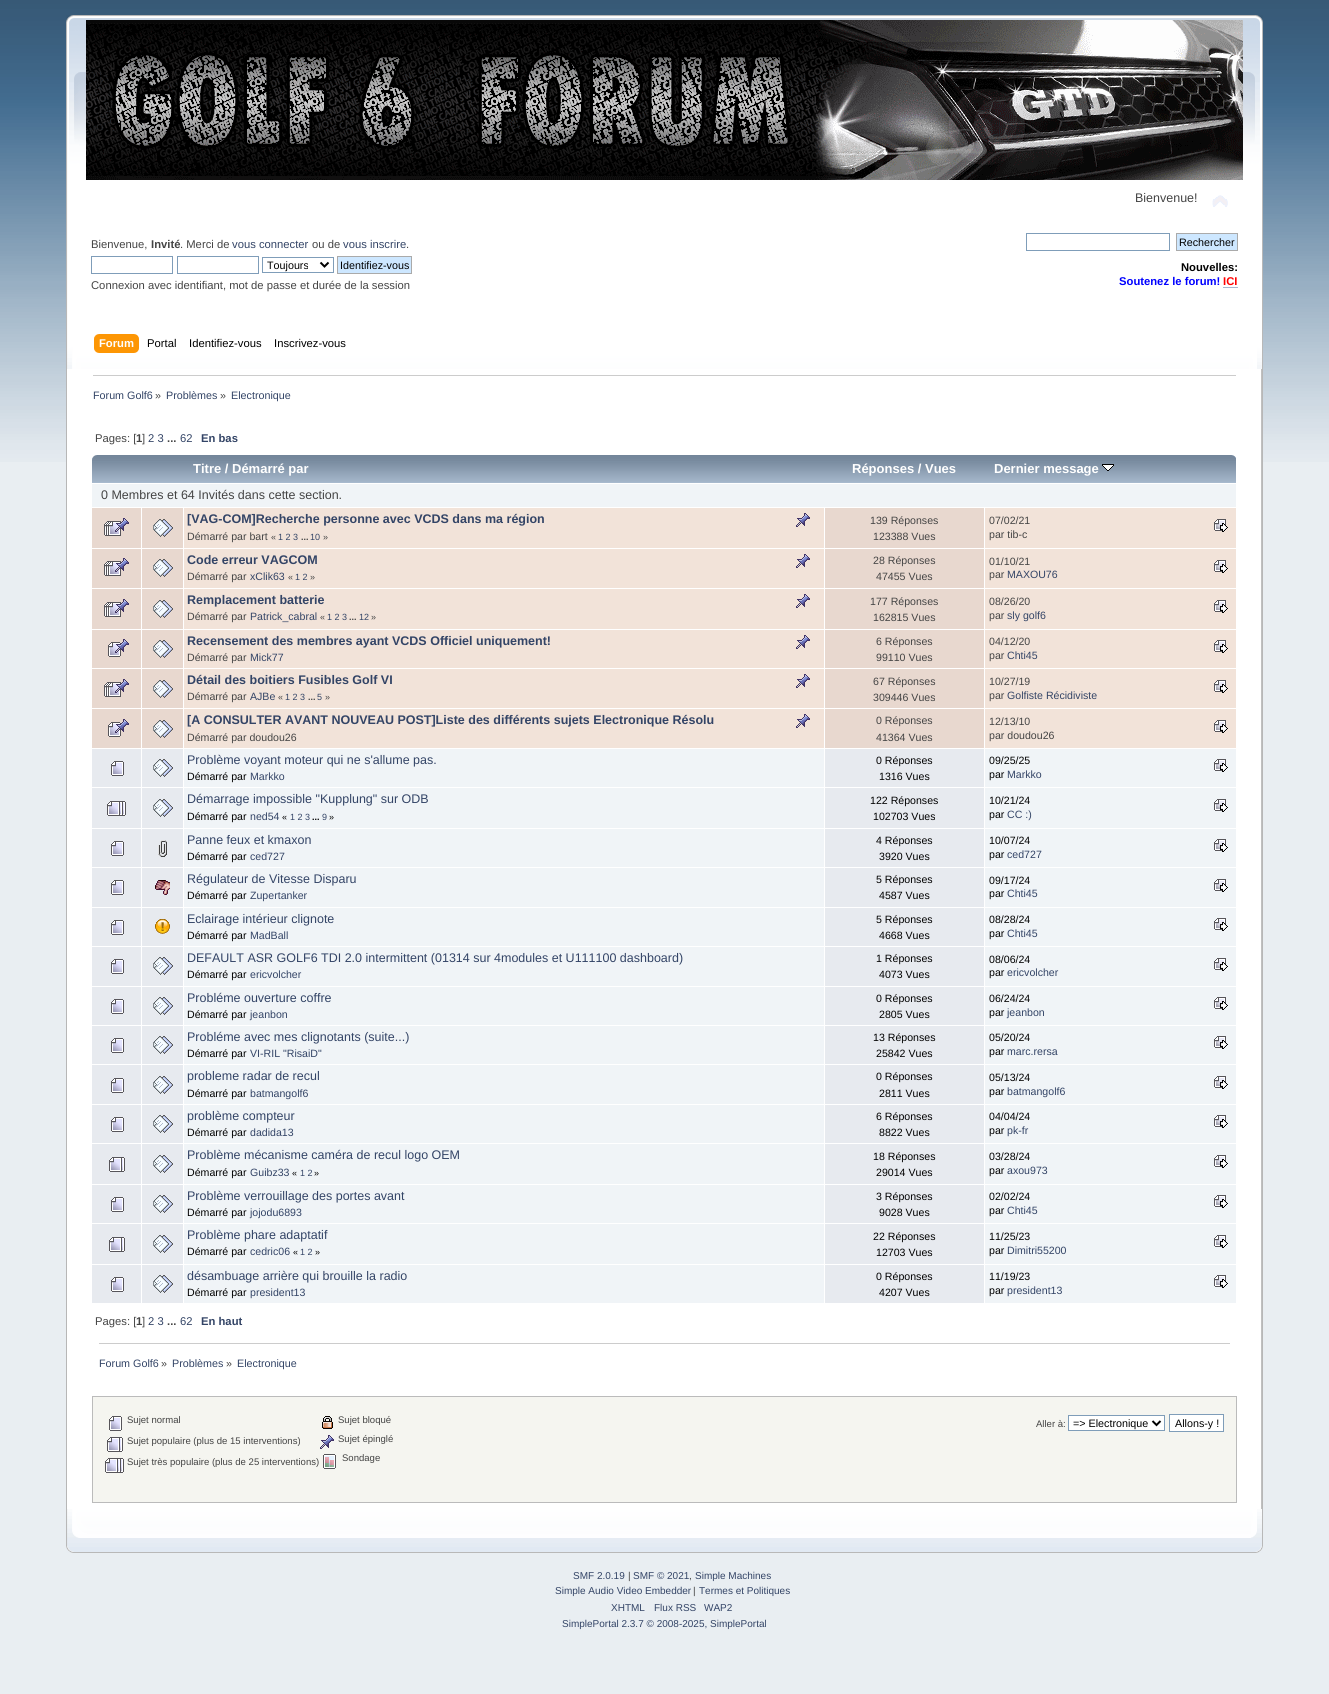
#include <cairo.h>
#include <math.h>
#include <stddef.h>

typedef struct { const char *family; double size; int italic, bold; unsigned color; } style_t;
static cairo_t *ctx;

static void ink(unsigned color) {
    cairo_set_source_rgb(ctx, (color >> 16) / 255.0, (color >> 8 & 255) / 255.0, (color & 255) / 255.0);
}

static void write(double x, double y, const char *s, const style_t *st) {
    cairo_select_font_face(ctx, st->family, st->italic ? CAIRO_FONT_SLANT_ITALIC : CAIRO_FONT_SLANT_NORMAL,
        st->bold ? CAIRO_FONT_WEIGHT_BOLD : CAIRO_FONT_WEIGHT_NORMAL);
    cairo_set_font_size(ctx, st->size);
    ink(st->color);
    cairo_move_to(ctx, x, y);
    cairo_show_text(ctx, s);
}

static void block(double x, double y, double w, double h, unsigned color) {
    ink(color);
    cairo_rectangle(ctx, x, y, w, h);
    cairo_fill(ctx);
}

static void paste(const char *path, double x, double y, double w, double h) {
    cairo_surface_t *image = cairo_image_surface_create_from_png(path);
    cairo_save(ctx);
    cairo_set_source_surface(ctx, image, x, y);
    cairo_rectangle(ctx, x, y, w, h);
    cairo_fill(ctx);
    cairo_restore(ctx);
    cairo_surface_destroy(image);
}

static const style_t s1 = {"Liberation Sans", 12.5, 0, 0, 0x444444};
static const style_t s2 = {"Liberation Sans", 11.25, 0, 0, 0x444444};
static const style_t s3 = {"Liberation Sans", 11.25, 0, 1, 0x444444};
static const style_t s4 = {"Liberation Sans", 11.25, 0, 0, 0x334466};
static const style_t s5 = {"Liberation Sans", 10.75, 0, 0, 0x000000};
static const style_t s6 = {"Liberation Sans", 11.25, 0, 1, 0x000000};
static const style_t s7 = {"Liberation Sans", 11.25, 0, 1, 0x0000ff};
static const style_t s8 = {"Liberation Sans", 11.25, 0, 1, 0xff0000};
static const style_t s9 = {"Liberation Sans", 11.25, 0, 1, 0xffffff};
static const style_t s10 = {"Liberation Sans", 11.25, 0, 0, 0x000000};
static const style_t s11 = {"Liberation Sans", 10.75, 0, 0, 0x334466};
static const style_t s12 = {"Liberation Sans", 10.75, 0, 0, 0x444444};
static const style_t s13 = {"Liberation Sans", 11.25, 0, 1, 0x334466};
static const style_t s14 = {"Liberation Sans", 13, 0, 1, 0xffffff};
static const style_t s15 = {"Liberation Sans", 12.5, 0, 1, 0x334466};
static const style_t s16 = {"Liberation Sans", 10.6, 0, 0, 0x444444};
static const style_t s17 = {"Liberation Sans", 9, 0, 0, 0x444444};
static const style_t s18 = {"Liberation Sans", 9, 0, 0, 0x334466};
static const style_t s19 = {"Liberation Sans", 9, 0, 1, 0x444444};
static const style_t s20 = {"Liberation Sans", 10.6, 0, 0, 0x334466};
static const style_t s21 = {"Liberation Sans", 12.5, 0, 0, 0x334466};
static const style_t s22 = {"Liberation Sans", 10.6, 0, 0, 0x000000};
static const style_t s23 = {"Liberation Sans", 9, 0, 0, 0x000000};
static const style_t s24 = {"Liberation Sans", 9, 0, 1, 0x000000};
static const style_t s25 = {"Liberation Sans", 9.55, 0, 0, 0x444444};
static const style_t s26 = {"Liberation Sans", 10, 0, 0, 0x334466};
static const style_t s27 = {"Liberation Sans", 10, 0, 0, 0x444444};

int main(void) {
    cairo_surface_t *surface = cairo_image_surface_create(CAIRO_FORMAT_RGB24, 1329, 1694);
    ctx = cairo_create(surface);
    cairo_font_options_t *options = cairo_font_options_create();
    cairo_font_options_set_hint_metrics(options, CAIRO_HINT_METRICS_OFF);
    cairo_font_options_set_hint_style(options, CAIRO_HINT_STYLE_NONE);
    cairo_set_font_options(ctx, options);
    cairo_set_miter_limit(ctx, 4);
    ink(0xe9eef2);
    cairo_paint(ctx);
    paste("pic1.png", 0, 0, 1329, 462);
    paste("pic2.png", 66, 15, 1183, 354);
    paste("pic3.png", 1249, 15, 14, 354);
    paste("pic4.png", 86, 20, 1157, 160);
    write(1135, 202, "Bienvenue!", &s1);
    paste("pic5.png", 1212, 195, 16, 12);
    write(91, 248, "Bienvenue,", &s2);
    write(151, 248, "Invité", &s3);
    write(180, 248, ". Merci de", &s2);
    write(232, 248, "vous connecter", &s4);
    write(312, 248, "ou de", &s2);
    write(343, 248, "vous inscrire", &s4);
    write(406, 248, ".", &s2);
    cairo_rectangle(ctx, 91.5, 256.5, 81, 17);
    ink(0x7f9db9);
    cairo_set_line_width(ctx, 1);
    cairo_stroke(ctx);
    cairo_rectangle(ctx, 177.5, 256.5, 81, 17);
    cairo_stroke(ctx);
    cairo_rectangle(ctx, 262.5, 257.5, 71, 15);
    cairo_stroke(ctx);
    cairo_new_path(ctx);
    cairo_move_to(ctx, 320.5, 262.5);
    cairo_line_to(ctx, 324.5, 266.5);
    cairo_line_to(ctx, 328.5, 262.5);
    ink(0x000000);
    cairo_set_line_width(ctx, 2);
    cairo_stroke(ctx);
    write(267, 269, "Toujours", &s5);
    ink(0xcde7ff);
    cairo_rectangle(ctx, 337.5, 256.5, 74, 17);
    cairo_fill_preserve(ctx);
    ink(0xaaaaaa);
    cairo_set_line_width(ctx, 1);
    cairo_stroke(ctx);
    write(340, 269, "Identifiez-vous", &s5);
    write(91, 289, "Connexion avec identifiant, mot de passe et durée de la session", &s2);
    cairo_rectangle(ctx, 1026.5, 233.5, 143, 17);
    ink(0x7f9db9);
    cairo_stroke(ctx);
    ink(0xcde7ff);
    cairo_rectangle(ctx, 1176.5, 233.5, 61, 17);
    cairo_fill_preserve(ctx);
    ink(0xaaaaaa);
    cairo_stroke(ctx);
    write(1179, 246, "Rechercher", &s5);
    write(1181, 271, "Nouvelles:", &s6);
    write(1119, 285, "Soutenez le forum!", &s7);
    write(1223, 285, "ICI", &s8);
    block(1223, 287, 15, 1, 0xa8b6cf);
    paste("pic6.png", 99, 334, 40, 19);
    paste("pic7.png", 94, 334, 5, 19);
    write(99, 347, "Forum", &s9);
    write(147, 347, "Portal", &s10);
    write(189, 347, "Identifiez-vous", &s10);
    write(274, 347, "Inscrivez-vous", &s10);
    block(67, 369, 1194, 1140, 0xffffff);
    block(66, 369, 1, 1140, 0xb7b7b7);
    paste("pic8.png", 1261, 369, 2, 1140);
    block(93, 375, 1143, 1, 0xcccccc);
    write(93, 399, "Forum Golf6", &s11);
    write(155, 399, "»", &s12);
    write(166, 399, "Problèmes", &s11);
    write(220, 399, "»", &s12);
    write(231, 399, "Electronique", &s11);
    write(95, 442, "Pages: [", &s2);
    write(136, 442, "1", &s3);
    write(142, 442, "]", &s2);
    write(148, 442, "2 3", &s4);
    write(167, 442, "...", &s3);
    write(180, 442, "62", &s4);
    write(201, 442, "En bas", &s13);
    block(92, 482, 1144, 1, 0xa7b9cd);
    paste("pic9.png", 92, 455, 92, 27);
    paste("pic10.png", 184, 455, 640, 27);
    write(193, 473, "Titre / Démarré par", &s14);
    paste("pic11.png", 824, 455, 160, 27);
    write(852, 473, "Réponses / Vues", &s14);
    paste("pic12.png", 984, 455, 252, 27);
    write(994, 473, "Dernier message", &s14);
    paste("pic13.png", 1102, 464, 12, 7);
    block(92, 484, 1144, 23, 0xf0f4f7);
    write(101, 499, "0 Membres et 64 Invités dans cette section.", &s1);
    block(92, 508, 49, 40, 0xe8d8cf);
    paste("pic14.png", 104, 518, 25, 18);
    block(142, 508, 41, 40, 0xe8d8cf);
    paste("pic15.png", 153, 519, 20, 18);
    block(184, 508, 640, 40, 0xf2e3d9);
    paste("pic16.png", 796, 513, 14, 14);
    write(187, 523, "[VAG-COM]Recherche personne avec VCDS dans ma région", &s15);
    write(187, 540, "Démarré par bart", &s16);
    write(271, 540, "«", &s17);
    write(278, 540, "1 2 3", &s18);
    write(301, 540, "...", &s19);
    write(310, 540, "10", &s18);
    write(323, 540, "»", &s17);
    block(825, 508, 159, 40, 0xe8d8cf);
    write(870, 524, "139 Réponses", &s16);
    write(873, 540, "123388 Vues", &s16);
    block(985, 508, 251, 40, 0xf2e3d9);
    write(989, 524, "07/02/21", &s16);
    paste("pic17.png", 1214, 519, 14, 13);
    write(989, 538, "par tib-c", &s16);
    block(92, 549, 49, 39, 0xe8d8cf);
    paste("pic14.png", 104, 558, 25, 18);
    block(142, 549, 41, 39, 0xe8d8cf);
    paste("pic15.png", 153, 559, 20, 18);
    block(184, 549, 640, 39, 0xf2e3d9);
    paste("pic16.png", 796, 554, 14, 14);
    write(187, 564, "Code erreur VAGCOM", &s15);
    write(187, 580, "Démarré par", &s16);
    write(250, 580, "xClik63", &s20);
    write(288, 580, "«", &s17);
    write(295, 580, "1 2", &s18);
    write(310, 580, "»", &s17);
    block(825, 549, 159, 39, 0xe8d8cf);
    write(873, 564, "28 Réponses", &s16);
    write(876, 580, "47455 Vues", &s16);
    block(985, 549, 251, 39, 0xf2e3d9);
    write(989, 565, "01/10/21", &s16);
    paste("pic17.png", 1214, 560, 14, 13);
    write(989, 578, "par", &s16);
    write(1007, 578, "MAXOU76", &s20);
    block(92, 589, 49, 40, 0xe8d8cf);
    paste("pic14.png", 104, 599, 25, 18);
    block(142, 589, 41, 40, 0xe8d8cf);
    paste("pic15.png", 153, 600, 20, 18);
    block(184, 589, 640, 40, 0xf2e3d9);
    paste("pic16.png", 796, 594, 14, 14);
    write(187, 604, "Remplacement batterie", &s15);
    write(187, 620, "Démarré par", &s16);
    write(250, 620, "Patrick_cabral", &s20);
    write(320, 620, "«", &s17);
    write(327, 620, "1 2 3", &s18);
    write(349, 620, "...", &s19);
    write(359, 620, "12", &s18);
    write(371, 620, "»", &s17);
    block(825, 589, 159, 40, 0xe8d8cf);
    write(870, 605, "177 Réponses", &s16);
    write(873, 621, "162815 Vues", &s16);
    block(985, 589, 251, 40, 0xf2e3d9);
    write(989, 605, "08/26/20", &s16);
    paste("pic17.png", 1214, 600, 14, 13);
    write(989, 619, "par", &s16);
    write(1007, 619, "sly golf6", &s20);
    block(92, 630, 49, 38, 0xe8d8cf);
    paste("pic18.png", 108, 639, 21, 18);
    block(142, 630, 41, 38, 0xe8d8cf);
    paste("pic15.png", 153, 640, 20, 18);
    block(184, 630, 640, 38, 0xf2e3d9);
    paste("pic16.png", 796, 635, 14, 14);
    write(187, 645, "Recensement des membres ayant VCDS Officiel uniquement!", &s15);
    write(187, 661, "Démarré par", &s16);
    write(250, 661, "Mick77", &s20);
    block(825, 630, 159, 38, 0xe8d8cf);
    write(876, 645, "6 Réponses", &s16);
    write(876, 661, "99110 Vues", &s16);
    block(985, 630, 251, 38, 0xf2e3d9);
    write(989, 645, "04/12/20", &s16);
    paste("pic17.png", 1214, 640, 14, 13);
    write(989, 659, "par", &s16);
    write(1007, 659, "Chti45", &s20);
    block(92, 669, 49, 39, 0xe8d8cf);
    paste("pic14.png", 104, 679, 25, 18);
    block(142, 669, 41, 39, 0xe8d8cf);
    paste("pic15.png", 153, 680, 20, 18);
    block(184, 669, 640, 39, 0xf2e3d9);
    paste("pic16.png", 796, 674, 14, 14);
    write(187, 684, "Détail des boitiers Fusibles Golf VI", &s15);
    write(187, 700, "Démarré par", &s16);
    write(250, 700, "AJBe", &s20);
    write(278, 700, "«", &s17);
    write(285, 700, "1 2 3", &s18);
    write(308, 700, "...", &s19);
    write(317, 700, "5", &s18);
    write(325, 700, "»", &s17);
    block(825, 669, 159, 39, 0xe8d8cf);
    write(873, 685, "67 Réponses", &s16);
    write(873, 701, "309446 Vues", &s16);
    block(985, 669, 251, 39, 0xf2e3d9);
    write(989, 685, "10/27/19", &s16);
    paste("pic17.png", 1214, 680, 14, 13);
    write(989, 699, "par", &s16);
    write(1007, 699, "Golfiste Récidiviste", &s20);
    block(92, 709, 49, 39, 0xe8d8cf);
    paste("pic18.png", 108, 719, 21, 18);
    block(142, 709, 41, 39, 0xe8d8cf);
    paste("pic15.png", 153, 720, 20, 18);
    block(184, 709, 640, 39, 0xf2e3d9);
    paste("pic16.png", 796, 714, 14, 14);
    write(187, 724, "[A CONSULTER AVANT NOUVEAU POST]Liste des différents sujets Electronique Résolu", &s15);
    write(187, 741, "Démarré par doudou26", &s16);
    block(825, 709, 159, 39, 0xe8d8cf);
    write(876, 724, "0 Réponses", &s16);
    write(876, 741, "41364 Vues", &s16);
    block(985, 709, 251, 39, 0xf2e3d9);
    write(989, 725, "12/13/10", &s16);
    paste("pic17.png", 1214, 720, 14, 13);
    write(989, 739, "par doudou26", &s16);
    block(92, 749, 49, 38, 0xe7eaef);
    paste("pic19.png", 111, 761, 13, 15);
    block(142, 749, 41, 38, 0xe7eaef);
    paste("pic20.png", 153, 759, 20, 18);
    block(184, 749, 640, 38, 0xf0f4f7);
    write(187, 764, "Problème voyant moteur qui ne s'allume pas.", &s21);
    write(187, 780, "Démarré par", &s22);
    write(250, 780, "Markko", &s20);
    block(825, 749, 159, 38, 0xe7eaef);
    write(876, 764, "0 Réponses", &s22);
    write(879, 780, "1316 Vues", &s22);
    block(985, 749, 251, 38, 0xf0f4f7);
    write(989, 764, "09/25/25", &s22);
    paste("pic21.png", 1214, 759, 14, 13);
    write(989, 778, "par", &s22);
    write(1007, 778, "Markko", &s20);
    block(92, 788, 49, 40, 0xe7eaef);
    paste("pic22.png", 107, 801, 19, 15);
    block(142, 788, 41, 40, 0xe7eaef);
    paste("pic20.png", 153, 799, 20, 18);
    block(184, 788, 640, 40, 0xf0f4f7);
    write(187, 803, "Démarrage impossible \"Kupplung\" sur ODB", &s21);
    write(187, 820, "Démarré par", &s22);
    write(250, 820, "ned54", &s20);
    write(282, 820, "«", &s23);
    write(290, 820, "1 2 3", &s18);
    write(312, 820, "...", &s24);
    write(322, 820, "9", &s18);
    write(329, 820, "»", &s23);
    block(825, 788, 159, 40, 0xe7eaef);
    write(870, 804, "122 Réponses", &s22);
    write(873, 820, "102703 Vues", &s22);
    block(985, 788, 251, 40, 0xf0f4f7);
    write(989, 804, "10/21/24", &s22);
    paste("pic21.png", 1214, 799, 14, 13);
    write(989, 818, "par", &s22);
    write(1007, 818, "CC :)", &s20);
    block(92, 829, 49, 38, 0xe7eaef);
    paste("pic19.png", 111, 841, 13, 15);
    block(142, 829, 41, 38, 0xe7eaef);
    paste("pic23.png", 158, 840, 9, 17);
    block(184, 829, 640, 38, 0xf0f4f7);
    write(187, 844, "Panne feux et kmaxon", &s21);
    write(187, 860, "Démarré par", &s22);
    write(250, 860, "ced727", &s20);
    block(825, 829, 159, 38, 0xe7eaef);
    write(876, 844, "4 Réponses", &s22);
    write(879, 860, "3920 Vues", &s22);
    block(985, 829, 251, 38, 0xf0f4f7);
    write(989, 844, "10/07/24", &s22);
    paste("pic21.png", 1214, 839, 14, 13);
    write(989, 858, "par", &s22);
    write(1007, 858, "ced727", &s20);
    block(92, 868, 49, 39, 0xe7eaef);
    paste("pic19.png", 111, 880, 13, 15);
    block(142, 868, 41, 39, 0xe7eaef);
    paste("pic24.png", 155, 880, 15, 15);
    block(184, 868, 640, 39, 0xf0f4f7);
    write(187, 883, "Régulateur de Vitesse Disparu", &s21);
    write(187, 899, "Démarré par", &s22);
    write(250, 899, "Zupertanker", &s20);
    block(825, 868, 159, 39, 0xe7eaef);
    write(876, 883, "5 Réponses", &s22);
    write(879, 899, "4587 Vues", &s22);
    block(985, 868, 251, 39, 0xf0f4f7);
    write(989, 884, "09/17/24", &s22);
    paste("pic21.png", 1214, 879, 14, 13);
    write(989, 897, "par", &s22);
    write(1007, 897, "Chti45", &s20);
    block(92, 908, 49, 38, 0xe7eaef);
    paste("pic19.png", 111, 920, 13, 15);
    block(142, 908, 41, 38, 0xe7eaef);
    paste("pic25.png", 155, 919, 15, 15);
    block(184, 908, 640, 38, 0xf0f4f7);
    write(187, 923, "Eclairage intérieur clignote", &s21);
    write(187, 939, "Démarré par", &s22);
    write(250, 939, "MadBall", &s20);
    block(825, 908, 159, 38, 0xe7eaef);
    write(876, 923, "5 Réponses", &s22);
    write(879, 939, "4668 Vues", &s22);
    block(985, 908, 251, 38, 0xf0f4f7);
    write(989, 923, "08/28/24", &s22);
    paste("pic21.png", 1214, 918, 14, 13);
    write(989, 937, "par", &s22);
    write(1007, 937, "Chti45", &s20);
    block(92, 947, 49, 39, 0xe7eaef);
    paste("pic19.png", 111, 959, 13, 15);
    block(142, 947, 41, 39, 0xe7eaef);
    paste("pic20.png", 153, 957, 20, 18);
    block(184, 947, 640, 39, 0xf0f4f7);
    write(187, 962, "DEFAULT ASR GOLF6 TDI 2.0 intermittent (01314 sur 4modules et U111100 dashboard)", &s21);
    write(187, 978, "Démarré par", &s22);
    write(250, 978, "ericvolcher", &s20);
    block(825, 947, 159, 39, 0xe7eaef);
    write(876, 962, "1 Réponses", &s22);
    write(879, 978, "4073 Vues", &s22);
    block(985, 947, 251, 39, 0xf0f4f7);
    write(989, 963, "08/06/24", &s22);
    paste("pic21.png", 1214, 958, 14, 13);
    write(989, 976, "par", &s22);
    write(1007, 976, "ericvolcher", &s20);
    block(92, 987, 49, 38, 0xe7eaef);
    paste("pic19.png", 111, 999, 13, 15);
    block(142, 987, 41, 38, 0xe7eaef);
    paste("pic20.png", 153, 997, 20, 18);
    block(184, 987, 640, 38, 0xf0f4f7);
    write(187, 1002, "Probléme ouverture coffre", &s21);
    write(187, 1018, "Démarré par", &s22);
    write(250, 1018, "jeanbon", &s20);
    block(825, 987, 159, 38, 0xe7eaef);
    write(876, 1002, "0 Réponses", &s22);
    write(879, 1018, "2805 Vues", &s22);
    block(985, 987, 251, 38, 0xf0f4f7);
    write(989, 1002, "06/24/24", &s22);
    paste("pic21.png", 1214, 997, 14, 13);
    write(989, 1016, "par", &s22);
    write(1007, 1016, "jeanbon", &s20);
    block(92, 1026, 49, 38, 0xe7eaef);
    paste("pic19.png", 111, 1038, 13, 15);
    block(142, 1026, 41, 38, 0xe7eaef);
    paste("pic20.png", 153, 1036, 20, 18);
    block(184, 1026, 640, 38, 0xf0f4f7);
    write(187, 1041, "Probléme avec mes clignotants (suite...)", &s21);
    write(187, 1057, "Démarré par", &s22);
    write(250, 1057, "VI-RIL \"RisaiD\"", &s20);
    block(825, 1026, 159, 38, 0xe7eaef);
    write(873, 1041, "13 Réponses", &s22);
    write(876, 1057, "25842 Vues", &s22);
    block(985, 1026, 251, 38, 0xf0f4f7);
    write(989, 1041, "05/20/24", &s22);
    paste("pic21.png", 1214, 1036, 14, 13);
    write(989, 1055, "par", &s22);
    write(1007, 1055, "marc.rersa", &s20);
    block(92, 1065, 49, 39, 0xe7eaef);
    paste("pic19.png", 111, 1078, 13, 15);
    block(142, 1065, 41, 39, 0xe7eaef);
    paste("pic20.png", 153, 1076, 20, 18);
    block(184, 1065, 640, 39, 0xf0f4f7);
    write(187, 1080, "probleme radar de recul", &s21);
    write(187, 1097, "Démarré par", &s22);
    write(250, 1097, "batmangolf6", &s20);
    block(825, 1065, 159, 39, 0xe7eaef);
    write(876, 1080, "0 Réponses", &s22);
    write(879, 1097, "2811 Vues", &s22);
    block(985, 1065, 251, 39, 0xf0f4f7);
    write(989, 1081, "05/13/24", &s22);
    paste("pic21.png", 1214, 1076, 14, 13);
    write(989, 1095, "par", &s22);
    write(1007, 1095, "batmangolf6", &s20);
    block(92, 1105, 49, 38, 0xe7eaef);
    paste("pic19.png", 111, 1117, 13, 15);
    block(142, 1105, 41, 38, 0xe7eaef);
    paste("pic20.png", 153, 1115, 20, 18);
    block(184, 1105, 640, 38, 0xf0f4f7);
    write(187, 1120, "problème compteur", &s21);
    write(187, 1136, "Démarré par", &s22);
    write(250, 1136, "dadida13", &s20);
    block(825, 1105, 159, 38, 0xe7eaef);
    write(876, 1120, "6 Réponses", &s22);
    write(879, 1136, "8822 Vues", &s22);
    block(985, 1105, 251, 38, 0xf0f4f7);
    write(989, 1120, "04/04/24", &s22);
    paste("pic21.png", 1214, 1115, 14, 13);
    write(989, 1134, "par", &s22);
    write(1007, 1134, "pk-fr", &s20);
    block(92, 1144, 49, 40, 0xe7eaef);
    paste("pic26.png", 109, 1157, 16, 15);
    block(142, 1144, 41, 40, 0xe7eaef);
    paste("pic20.png", 153, 1155, 20, 18);
    block(184, 1144, 640, 40, 0xf0f4f7);
    write(187, 1159, "Problème mécanisme caméra de recul logo OEM", &s21);
    write(187, 1176, "Démarré par", &s22);
    write(250, 1176, "Guibz33", &s20);
    write(292, 1176, "«", &s23);
    write(300, 1176, "1 2", &s18);
    write(314, 1176, "»", &s23);
    block(825, 1144, 159, 40, 0xe7eaef);
    write(873, 1160, "18 Réponses", &s22);
    write(876, 1176, "29014 Vues", &s22);
    block(985, 1144, 251, 40, 0xf0f4f7);
    write(989, 1160, "03/28/24", &s22);
    paste("pic21.png", 1214, 1155, 14, 13);
    write(989, 1174, "par", &s22);
    write(1007, 1174, "axou973", &s20);
    block(92, 1185, 49, 38, 0xe7eaef);
    paste("pic19.png", 111, 1197, 13, 15);
    block(142, 1185, 41, 38, 0xe7eaef);
    paste("pic20.png", 153, 1195, 20, 18);
    block(184, 1185, 640, 38, 0xf0f4f7);
    write(187, 1200, "Problème verrouillage des portes avant", &s21);
    write(187, 1216, "Démarré par", &s22);
    write(250, 1216, "jojodu6893", &s20);
    block(825, 1185, 159, 38, 0xe7eaef);
    write(876, 1200, "3 Réponses", &s22);
    write(879, 1216, "9028 Vues", &s22);
    block(985, 1185, 251, 38, 0xf0f4f7);
    write(989, 1200, "02/02/24", &s22);
    paste("pic21.png", 1214, 1195, 14, 13);
    write(989, 1214, "par", &s22);
    write(1007, 1214, "Chti45", &s20);
    block(92, 1224, 49, 40, 0xe7eaef);
    paste("pic26.png", 109, 1237, 16, 15);
    block(142, 1224, 41, 40, 0xe7eaef);
    paste("pic20.png", 153, 1235, 20, 18);
    block(184, 1224, 640, 40, 0xf0f4f7);
    write(187, 1239, "Problème phare adaptatif", &s21);
    write(187, 1255, "Démarré par", &s22);
    write(250, 1255, "cedric06", &s20);
    write(293, 1255, "«", &s23);
    write(300, 1255, "1 2", &s18);
    write(315, 1255, "»", &s23);
    block(825, 1224, 159, 40, 0xe7eaef);
    write(873, 1240, "22 Réponses", &s22);
    write(876, 1256, "12703 Vues", &s22);
    block(985, 1224, 251, 40, 0xf0f4f7);
    write(989, 1240, "11/25/23", &s22);
    paste("pic21.png", 1214, 1235, 14, 13);
    write(989, 1254, "par", &s22);
    write(1007, 1254, "Dimitri55200", &s20);
    block(92, 1265, 49, 38, 0xe7eaef);
    paste("pic19.png", 111, 1277, 13, 15);
    block(142, 1265, 41, 38, 0xe7eaef);
    paste("pic20.png", 153, 1275, 20, 18);
    block(184, 1265, 640, 38, 0xf0f4f7);
    write(187, 1280, "désambuage arrière qui brouille la radio", &s21);
    write(187, 1296, "Démarré par", &s22);
    write(250, 1296, "president13", &s20);
    block(825, 1265, 159, 38, 0xe7eaef);
    write(876, 1280, "0 Réponses", &s22);
    write(879, 1296, "4207 Vues", &s22);
    block(985, 1265, 251, 38, 0xf0f4f7);
    write(989, 1280, "11/19/23", &s22);
    paste("pic21.png", 1214, 1275, 14, 13);
    write(989, 1294, "par", &s22);
    write(1007, 1294, "president13", &s20);
    write(95, 1325, "Pages: [", &s2);
    write(136, 1325, "1", &s3);
    write(142, 1325, "]", &s2);
    write(148, 1325, "2 3", &s4);
    write(167, 1325, "...", &s3);
    write(180, 1325, "62", &s4);
    write(201, 1325, "En haut", &s13);
    block(99, 1343, 1131, 1, 0xcccccc);
    write(99, 1367, "Forum Golf6", &s11);
    write(161, 1367, "»", &s12);
    write(172, 1367, "Problèmes", &s11);
    write(226, 1367, "»", &s12);
    write(237, 1367, "Electronique", &s11);
    ink(0xf5f5f0);
    cairo_rectangle(ctx, 92.5, 1396.5, 1144, 106);
    cairo_fill_preserve(ctx);
    ink(0xbbbbbb);
    cairo_stroke(ctx);
    paste("pic27.png", 109, 1416, 13, 15);
    write(127, 1423, "Sujet normal", &s25);
    paste("pic28.png", 107, 1437, 16, 15);
    write(127, 1444, "Sujet populaire (plus de 15 interventions)", &s25);
    paste("pic29.png", 105, 1458, 19, 15);
    write(127, 1465, "Sujet très populaire (plus de 25 interventions)", &s25);
    paste("pic30.png", 322, 1416, 11, 13);
    write(338, 1423, "Sujet bloqué", &s25);
    paste("pic31.png", 320, 1435, 14, 14);
    write(338, 1442, "Sujet épinglé", &s25);
    paste("pic32.png", 323, 1454, 13, 15);
    write(342, 1461, "Sondage", &s25);
    write(1036, 1427, "Aller à:", &s25);
    ink(0xffffff);
    cairo_rectangle(ctx, 1068.5, 1415.5, 96, 15);
    cairo_fill_preserve(ctx);
    ink(0x7f9db9);
    cairo_stroke(ctx);
    cairo_new_path(ctx);
    cairo_move_to(ctx, 1152.5, 1421);
    cairo_line_to(ctx, 1156.5, 1425);
    cairo_line_to(ctx, 1160.5, 1421);
    ink(0x000000);
    cairo_set_line_width(ctx, 2);
    cairo_stroke(ctx);
    write(1073, 1427, "=> Electronique", &s5);
    ink(0xffffff);
    cairo_rectangle(ctx, 1169.5, 1414.5, 54, 17);
    cairo_fill_preserve(ctx);
    ink(0x7f9db9);
    cairo_set_line_width(ctx, 1);
    cairo_stroke(ctx);
    write(1175, 1427, "Allons-y !", &s5);
    paste("pic33.png", 66, 1509, 1185, 44);
    paste("pic34.png", 1251, 1509, 12, 44);
    write(573, 1579, "SMF 2.0.19", &s26);
    write(628, 1579, "|", &s27);
    write(633, 1579, "SMF © 2021", &s26);
    write(689, 1579, ",", &s27);
    write(695, 1579, "Simple Machines", &s26);
    write(555, 1594, "Simple Audio Video Embedder", &s26);
    write(693, 1594, "|", &s27);
    write(699, 1594, "Termes et Politiques", &s26);
    write(611, 1611, "XHTML", &s26);
    write(654, 1611, "Flux RSS", &s26);
    write(704, 1611, "WAP2", &s26);
    write(562, 1627, "SimplePortal 2.3.7 © 2008-2025, SimplePortal", &s26);
    cairo_surface_write_to_png(surface, "screenshot.png");
    cairo_font_options_destroy(options);
    cairo_destroy(ctx);
    cairo_surface_destroy(surface);
    return 0;
}
